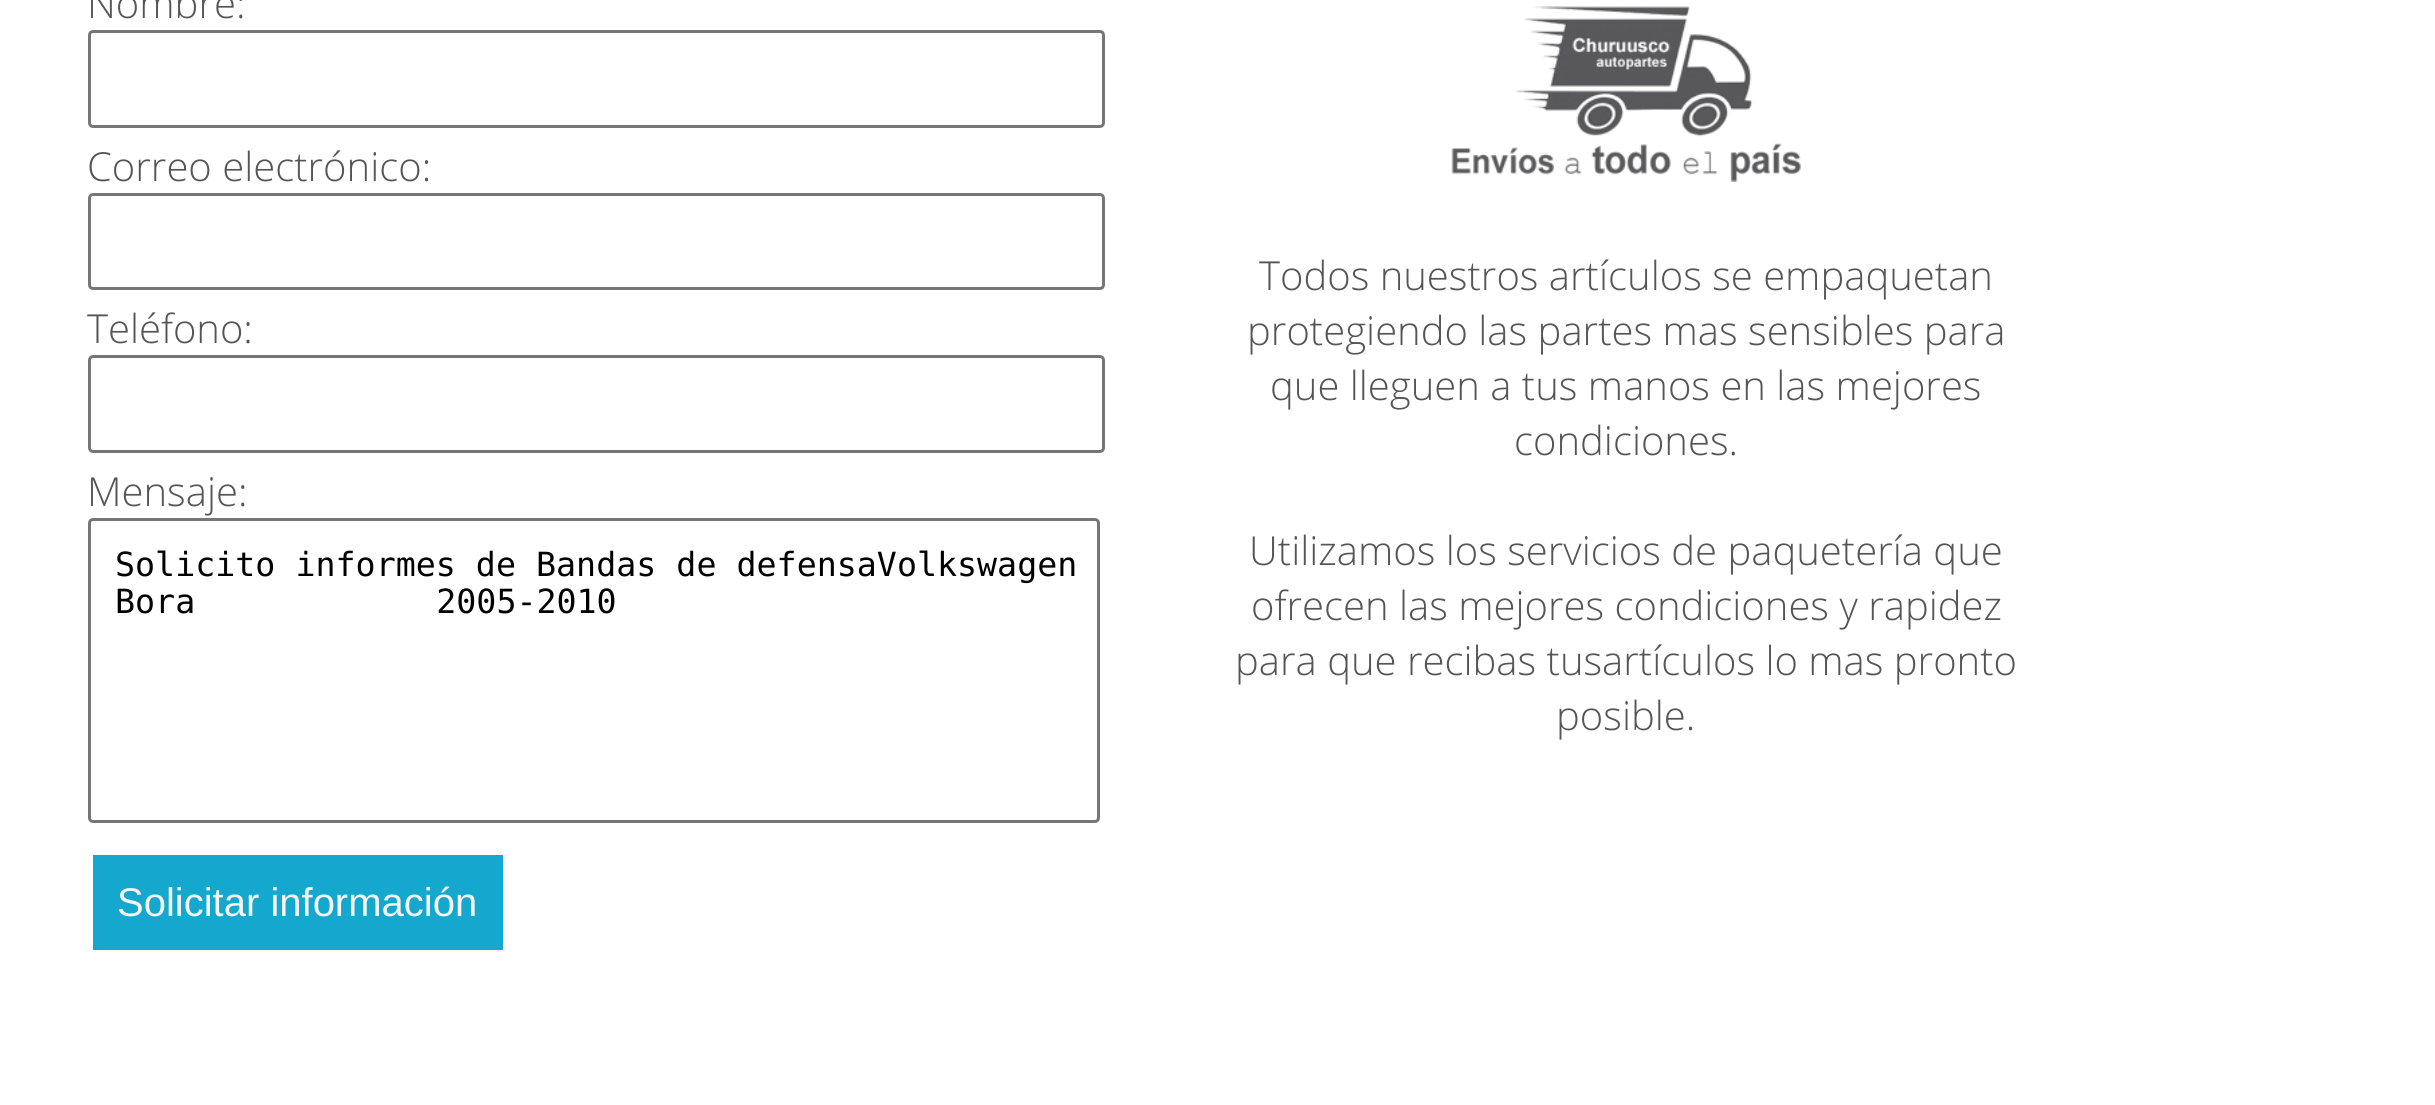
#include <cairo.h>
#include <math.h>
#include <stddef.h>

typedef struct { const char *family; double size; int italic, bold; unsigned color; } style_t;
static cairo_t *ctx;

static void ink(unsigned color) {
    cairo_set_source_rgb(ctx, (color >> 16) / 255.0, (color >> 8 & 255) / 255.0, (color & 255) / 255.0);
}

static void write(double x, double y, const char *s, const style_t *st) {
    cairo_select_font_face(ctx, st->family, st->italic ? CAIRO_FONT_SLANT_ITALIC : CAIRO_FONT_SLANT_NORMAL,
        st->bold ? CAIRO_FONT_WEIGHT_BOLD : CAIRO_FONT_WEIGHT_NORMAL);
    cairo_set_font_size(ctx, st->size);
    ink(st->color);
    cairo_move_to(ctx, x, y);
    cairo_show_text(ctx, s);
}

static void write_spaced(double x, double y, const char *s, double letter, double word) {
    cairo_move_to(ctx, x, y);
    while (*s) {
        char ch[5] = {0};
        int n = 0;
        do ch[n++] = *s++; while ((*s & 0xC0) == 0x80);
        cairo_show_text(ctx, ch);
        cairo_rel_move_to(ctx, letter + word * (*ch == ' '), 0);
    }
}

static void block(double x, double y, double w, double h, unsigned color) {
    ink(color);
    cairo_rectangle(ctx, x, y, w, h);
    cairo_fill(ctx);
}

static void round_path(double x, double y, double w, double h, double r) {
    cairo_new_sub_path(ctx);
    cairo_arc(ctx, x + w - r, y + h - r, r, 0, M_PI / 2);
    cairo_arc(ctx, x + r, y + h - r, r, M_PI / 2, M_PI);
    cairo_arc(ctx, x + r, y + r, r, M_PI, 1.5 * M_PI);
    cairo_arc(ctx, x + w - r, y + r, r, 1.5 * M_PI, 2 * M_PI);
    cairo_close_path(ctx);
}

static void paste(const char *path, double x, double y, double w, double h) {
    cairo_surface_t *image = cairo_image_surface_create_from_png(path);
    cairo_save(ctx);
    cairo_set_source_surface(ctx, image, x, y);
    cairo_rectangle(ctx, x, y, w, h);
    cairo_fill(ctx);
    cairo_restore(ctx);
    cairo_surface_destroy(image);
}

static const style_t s1 = {"Open Sans Light", 40, 0, 0, 0x555555};
static const style_t s2 = {"DejaVu Sans Mono", 33.3, 0, 0, 0x000000};
static const style_t s3 = {"Liberation Sans", 40, 0, 0, 0xf6f6f6};

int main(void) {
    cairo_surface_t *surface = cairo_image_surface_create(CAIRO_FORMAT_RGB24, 2435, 1105);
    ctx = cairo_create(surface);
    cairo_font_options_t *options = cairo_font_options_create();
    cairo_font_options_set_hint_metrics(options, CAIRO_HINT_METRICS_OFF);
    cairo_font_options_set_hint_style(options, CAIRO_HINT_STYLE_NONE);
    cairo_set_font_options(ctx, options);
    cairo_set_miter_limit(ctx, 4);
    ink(0xffffff);
    cairo_paint(ctx);
    write(87, 18, "Nombre:", &s1);
    round_path(89.5, 31.5, 1014, 95, 3.5);
    ink(0x767676);
    cairo_set_line_width(ctx, 3);
    cairo_stroke(ctx);
    write(87, 181, "Correo electrónico:", &s1);
    round_path(89.5, 194.5, 1014, 94, 3.5);
    ink(0x767676);
    cairo_stroke(ctx);
    write(87, 343, "Teléfono:", &s1);
    round_path(89.5, 356.5, 1014, 95, 3.5);
    ink(0x767676);
    cairo_stroke(ctx);
    write(87, 506, "Mensaje:", &s1);
    round_path(89.5, 519.5, 1009, 302, 3.5);
    ink(0x767676);
    cairo_stroke(ctx);
    write(115, 576, "Solicito informes de Bandas de defensaVolkswagen", &s2);
    write_spaced(115, 613, "Bora 2005-2010", 0, 221);
    block(93, 855, 410, 95, 0x15a8ce);
    write(117, 916, "Solicitar información", &s3);
    paste("pic1.png", 1451, 6, 350, 176);
    write(1259, 290, "Todos nuestros artículos se empaquetan", &s1);
    write(1247, 345, "protegiendo las partes mas sensibles para", &s1);
    write(1270, 400, "que lleguen a tus manos en las mejores", &s1);
    write(1514, 455, "condiciones.", &s1);
    write(1249, 565, "Utilizamos los servicios de paquetería que", &s1);
    write(1251, 620, "ofrecen las mejores condiciones y rapidez", &s1);
    write(1235, 675, "para que recibas tusartículos lo mas pronto", &s1);
    write(1556, 730, "posible.", &s1);
    cairo_surface_write_to_png(surface, "screenshot.png");
    cairo_font_options_destroy(options);
    cairo_destroy(ctx);
    cairo_surface_destroy(surface);
    return 0;
}
